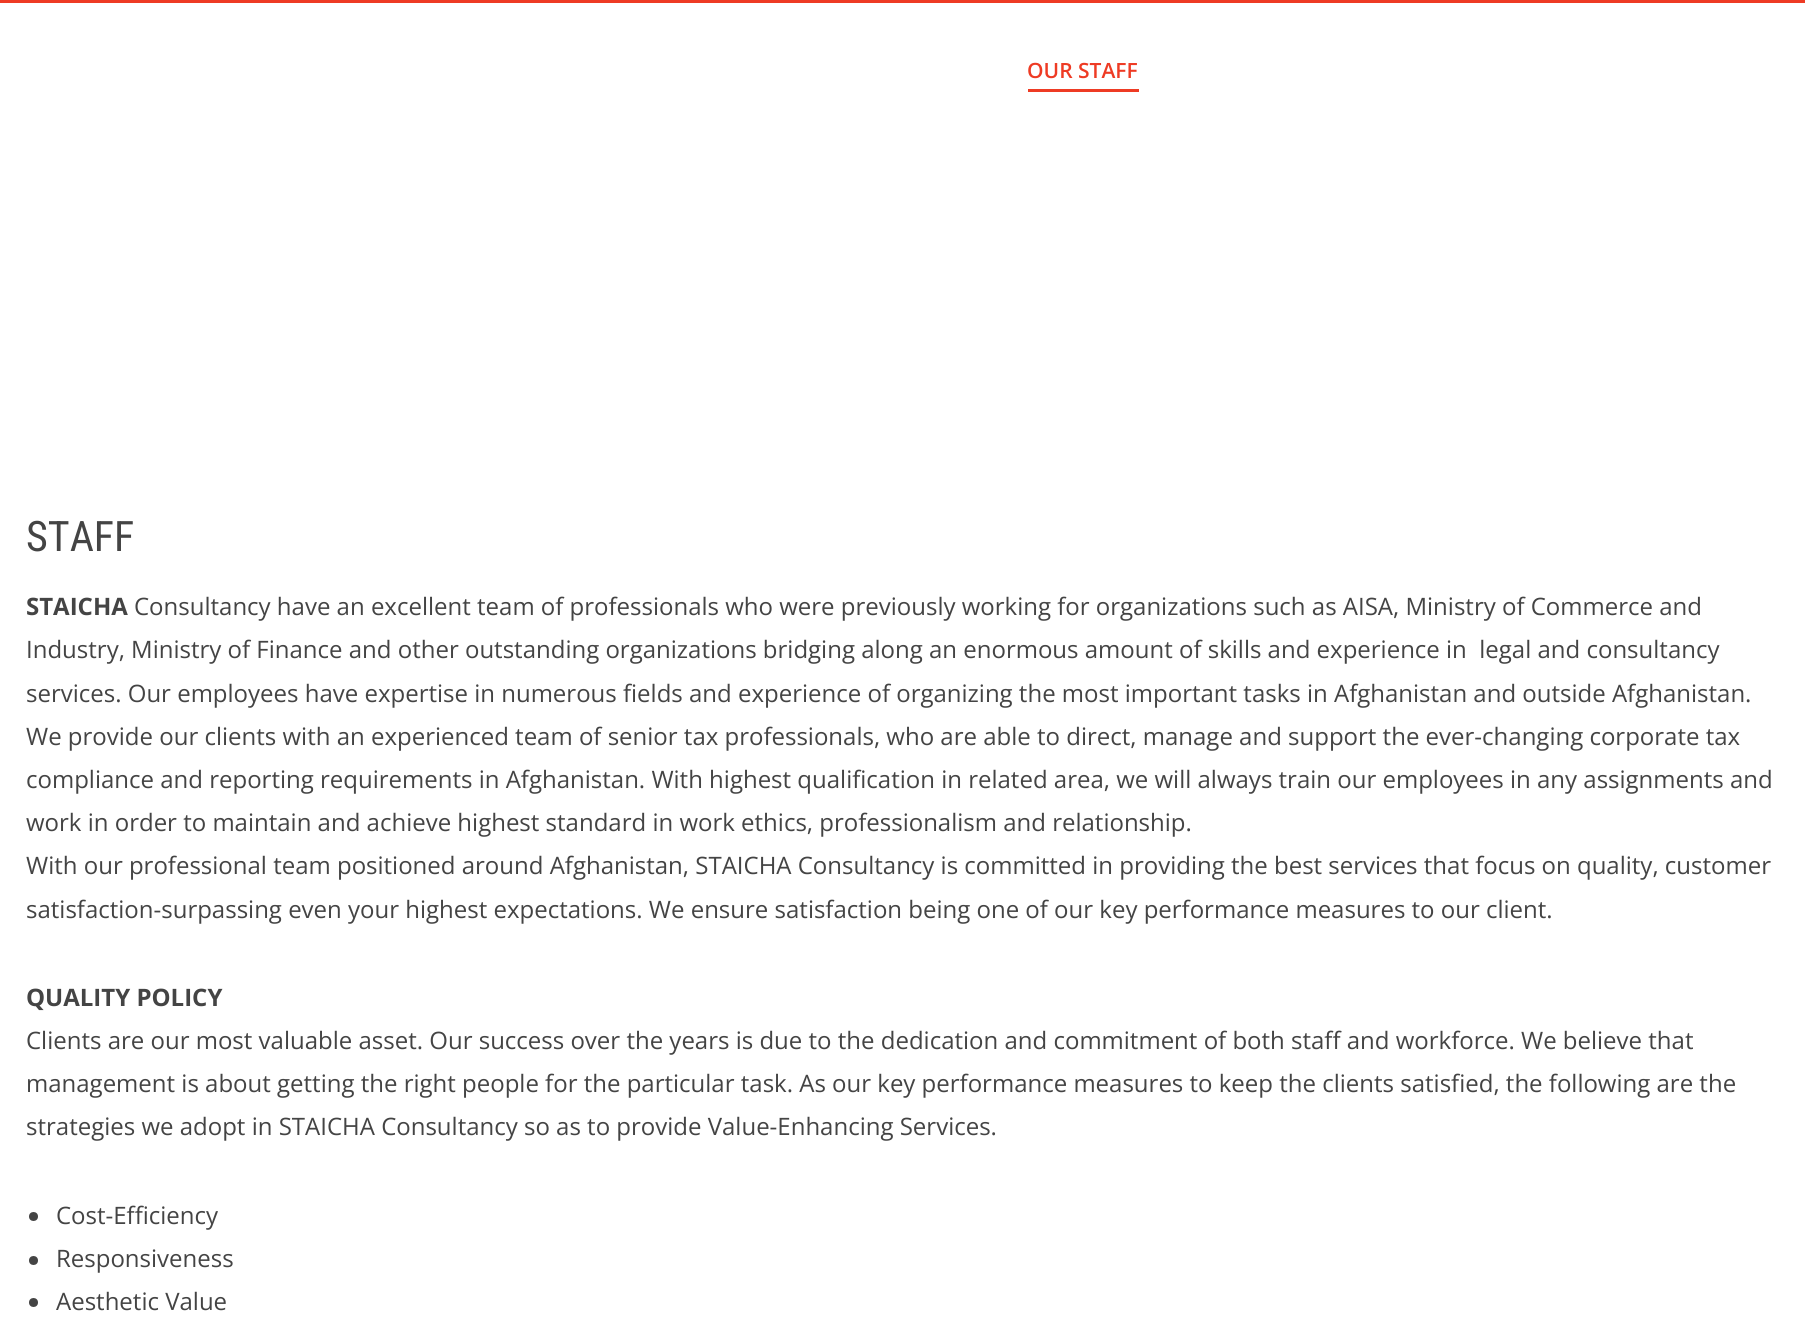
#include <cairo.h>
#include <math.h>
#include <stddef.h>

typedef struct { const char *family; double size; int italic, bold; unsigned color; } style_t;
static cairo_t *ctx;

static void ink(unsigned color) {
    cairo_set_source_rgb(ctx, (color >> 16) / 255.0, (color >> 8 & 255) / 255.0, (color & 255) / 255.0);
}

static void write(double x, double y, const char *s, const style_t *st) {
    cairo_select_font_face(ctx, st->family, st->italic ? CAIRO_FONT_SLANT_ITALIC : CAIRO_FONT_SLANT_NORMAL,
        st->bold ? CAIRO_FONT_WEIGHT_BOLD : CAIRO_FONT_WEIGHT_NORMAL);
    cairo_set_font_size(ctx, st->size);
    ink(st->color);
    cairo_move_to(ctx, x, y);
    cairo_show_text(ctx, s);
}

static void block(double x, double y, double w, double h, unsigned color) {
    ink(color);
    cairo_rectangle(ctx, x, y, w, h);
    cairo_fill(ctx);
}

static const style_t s1 = {"Open Sans SemiBold", 21, 0, 0, 0xee3b24};
static const style_t s2 = {"Roboto Condensed", 42, 0, 0, 0x444444};
static const style_t s3 = {"Open Sans", 24, 0, 1, 0x444444};
static const style_t s4 = {"Open Sans", 24, 0, 0, 0x444444};

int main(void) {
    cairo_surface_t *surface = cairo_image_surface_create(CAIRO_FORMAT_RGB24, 1805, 1332);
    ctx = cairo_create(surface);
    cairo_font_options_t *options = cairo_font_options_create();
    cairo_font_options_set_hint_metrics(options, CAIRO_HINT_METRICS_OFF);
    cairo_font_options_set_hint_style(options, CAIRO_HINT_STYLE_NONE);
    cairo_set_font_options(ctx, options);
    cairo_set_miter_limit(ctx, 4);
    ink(0xffffff);
    cairo_paint(ctx);
    block(0, 0, 1805, 3, 0xee3b24);
    write(1027, 78, "OUR STAFF", &s1);
    block(1028, 89, 111, 3, 0xee3b24);
    write(26, 551, "STAFF", &s2);
    write(26, 615, "STAICHA", &s3);
    write(134, 615, "Consultancy have an excellent team of professionals who were previously working for organizations such as AISA, Ministry of Commerce and", &s4);
    write(26, 658, "Industry, Ministry of Finance and other outstanding organizations bridging along an enormous amount of skills and experience in  legal and consultancy", &s4);
    write(26, 702, "services. Our employees have expertise in numerous fields and experience of organizing the most important tasks in Afghanistan and outside Afghanistan.", &s4);
    write(26, 745, "We provide our clients with an experienced team of senior tax professionals, who are able to direct, manage and support the ever-changing corporate tax", &s4);
    write(26, 788, "compliance and reporting requirements in Afghanistan. With highest qualification in related area, we will always train our employees in any assignments and", &s4);
    write(26, 831, "work in order to maintain and achieve highest standard in work ethics, professionalism and relationship.", &s4);
    write(26, 874, "With our professional team positioned around Afghanistan, STAICHA Consultancy is committed in providing the best services that focus on quality, customer", &s4);
    write(26, 918, "satisfaction-surpassing even your highest expectations. We ensure satisfaction being one of our key performance measures to our client.", &s4);
    write(26, 1006, "QUALITY POLICY", &s3);
    write(26, 1049, "Clients are our most valuable asset. Our success over the years is due to the dedication and commitment of both staff and workforce. We believe that", &s4);
    write(26, 1092, "management is about getting the right people for the particular task. As our key performance measures to keep the clients satisfied, the following are the", &s4);
    write(26, 1135, "strategies we adopt in STAICHA Consultancy so as to provide Value-Enhancing Services.", &s4);
    cairo_new_path(ctx);
    cairo_arc(ctx, 33.5, 1216.5, 4.5, 0, 2 * M_PI);
    cairo_fill(ctx);
    write(56, 1224, "Cost-Efficiency", &s4);
    cairo_new_path(ctx);
    cairo_arc(ctx, 33.5, 1260.5, 4.5, 0, 2 * M_PI);
    cairo_fill(ctx);
    write(56, 1267, "Responsiveness", &s4);
    cairo_new_path(ctx);
    cairo_arc(ctx, 33.5, 1302.5, 4.5, 0, 2 * M_PI);
    cairo_fill(ctx);
    write(56, 1310, "Aesthetic Value", &s4);
    cairo_surface_write_to_png(surface, "screenshot.png");
    cairo_font_options_destroy(options);
    cairo_destroy(ctx);
    cairo_surface_destroy(surface);
    return 0;
}
